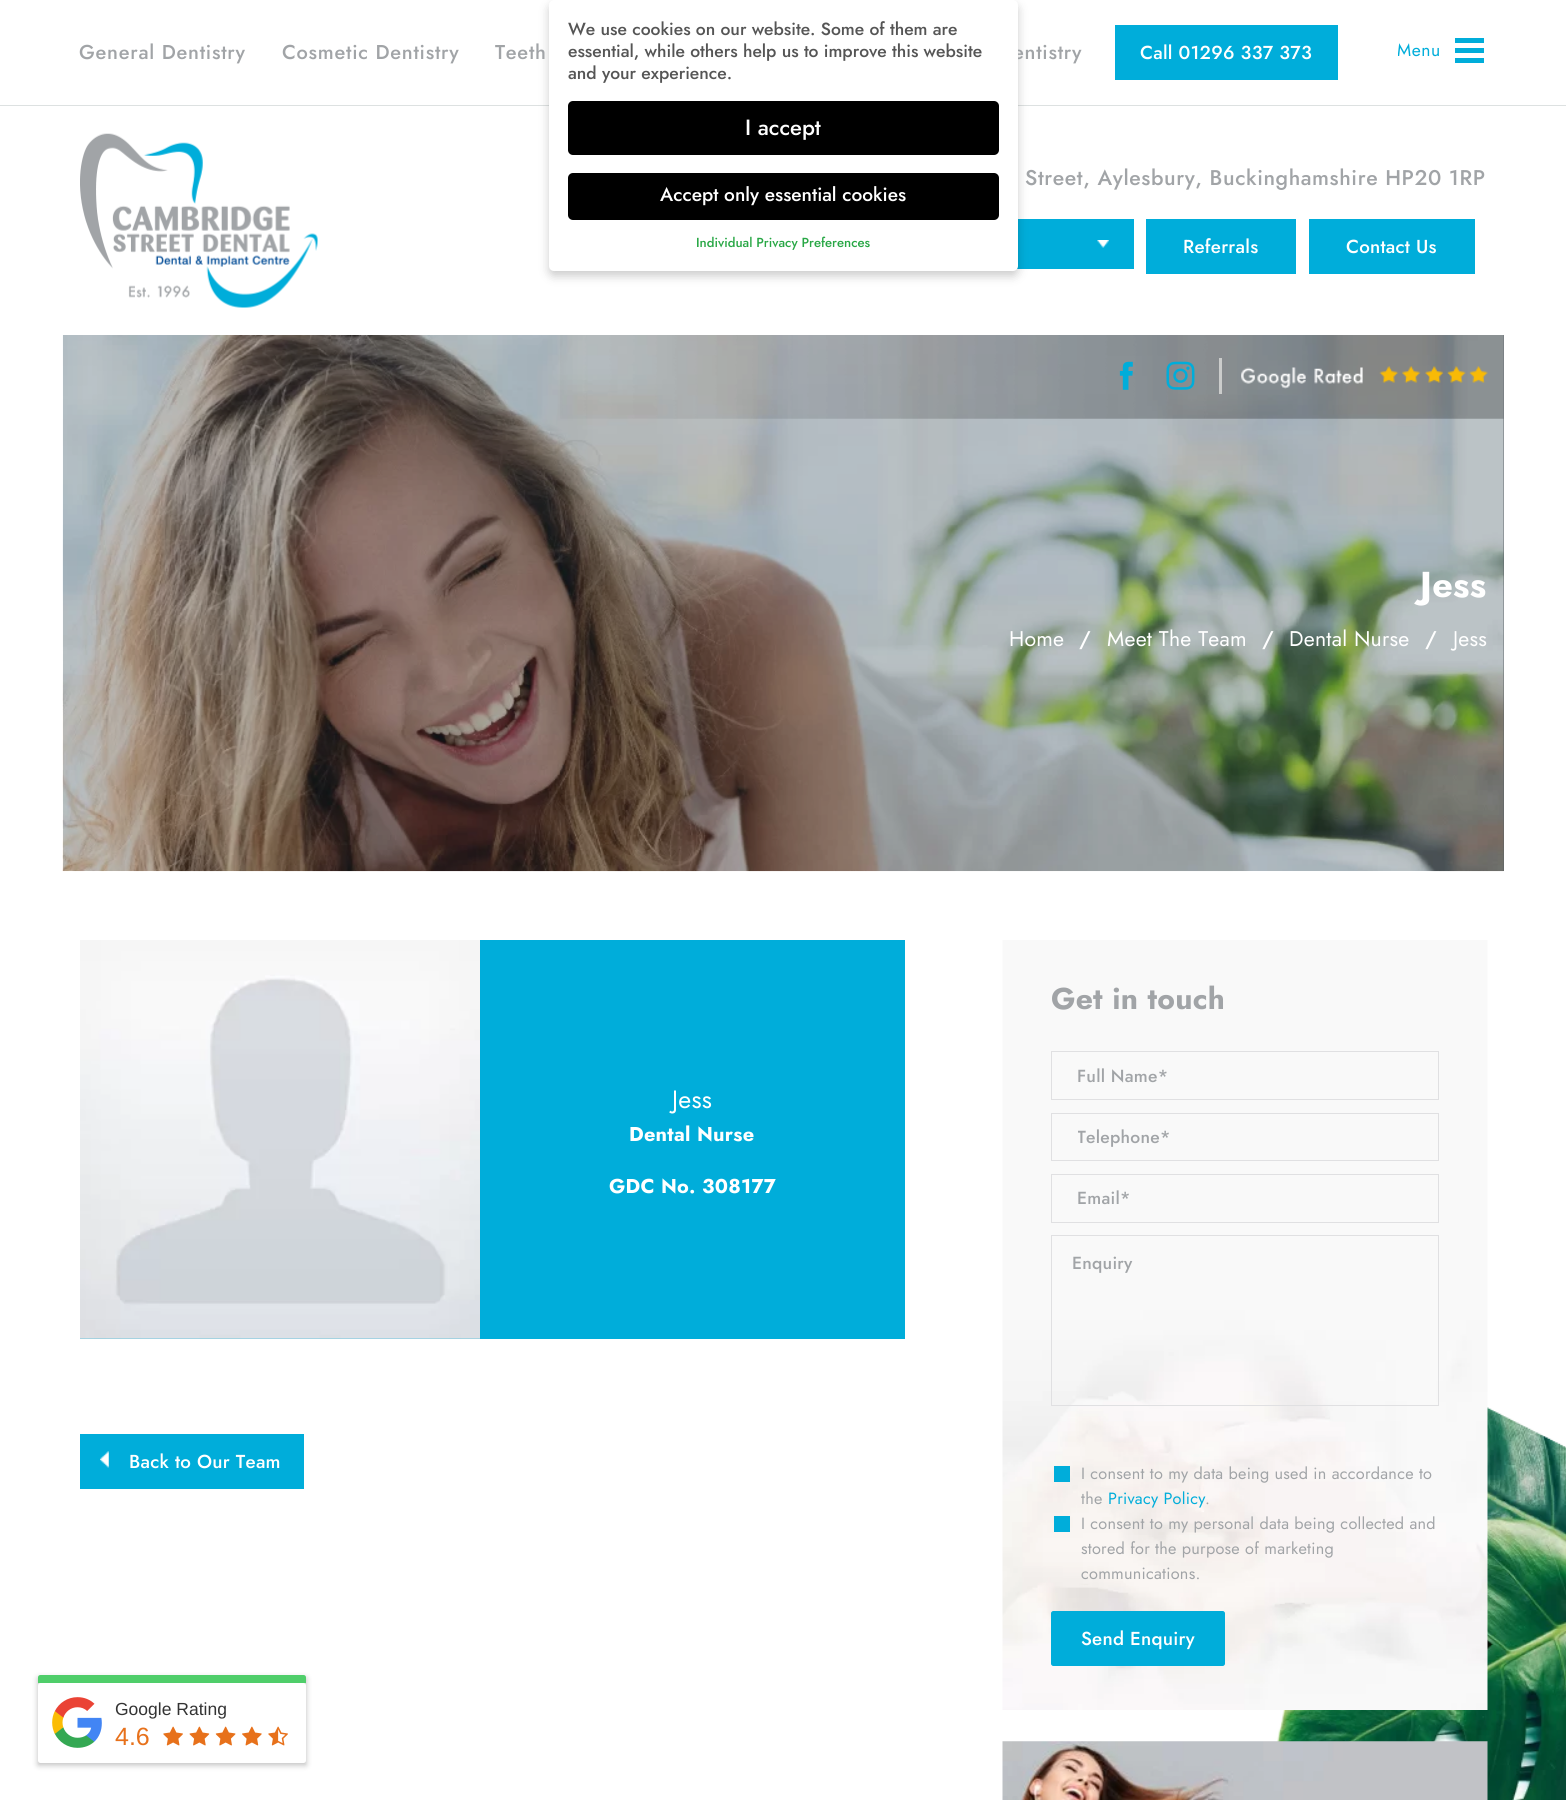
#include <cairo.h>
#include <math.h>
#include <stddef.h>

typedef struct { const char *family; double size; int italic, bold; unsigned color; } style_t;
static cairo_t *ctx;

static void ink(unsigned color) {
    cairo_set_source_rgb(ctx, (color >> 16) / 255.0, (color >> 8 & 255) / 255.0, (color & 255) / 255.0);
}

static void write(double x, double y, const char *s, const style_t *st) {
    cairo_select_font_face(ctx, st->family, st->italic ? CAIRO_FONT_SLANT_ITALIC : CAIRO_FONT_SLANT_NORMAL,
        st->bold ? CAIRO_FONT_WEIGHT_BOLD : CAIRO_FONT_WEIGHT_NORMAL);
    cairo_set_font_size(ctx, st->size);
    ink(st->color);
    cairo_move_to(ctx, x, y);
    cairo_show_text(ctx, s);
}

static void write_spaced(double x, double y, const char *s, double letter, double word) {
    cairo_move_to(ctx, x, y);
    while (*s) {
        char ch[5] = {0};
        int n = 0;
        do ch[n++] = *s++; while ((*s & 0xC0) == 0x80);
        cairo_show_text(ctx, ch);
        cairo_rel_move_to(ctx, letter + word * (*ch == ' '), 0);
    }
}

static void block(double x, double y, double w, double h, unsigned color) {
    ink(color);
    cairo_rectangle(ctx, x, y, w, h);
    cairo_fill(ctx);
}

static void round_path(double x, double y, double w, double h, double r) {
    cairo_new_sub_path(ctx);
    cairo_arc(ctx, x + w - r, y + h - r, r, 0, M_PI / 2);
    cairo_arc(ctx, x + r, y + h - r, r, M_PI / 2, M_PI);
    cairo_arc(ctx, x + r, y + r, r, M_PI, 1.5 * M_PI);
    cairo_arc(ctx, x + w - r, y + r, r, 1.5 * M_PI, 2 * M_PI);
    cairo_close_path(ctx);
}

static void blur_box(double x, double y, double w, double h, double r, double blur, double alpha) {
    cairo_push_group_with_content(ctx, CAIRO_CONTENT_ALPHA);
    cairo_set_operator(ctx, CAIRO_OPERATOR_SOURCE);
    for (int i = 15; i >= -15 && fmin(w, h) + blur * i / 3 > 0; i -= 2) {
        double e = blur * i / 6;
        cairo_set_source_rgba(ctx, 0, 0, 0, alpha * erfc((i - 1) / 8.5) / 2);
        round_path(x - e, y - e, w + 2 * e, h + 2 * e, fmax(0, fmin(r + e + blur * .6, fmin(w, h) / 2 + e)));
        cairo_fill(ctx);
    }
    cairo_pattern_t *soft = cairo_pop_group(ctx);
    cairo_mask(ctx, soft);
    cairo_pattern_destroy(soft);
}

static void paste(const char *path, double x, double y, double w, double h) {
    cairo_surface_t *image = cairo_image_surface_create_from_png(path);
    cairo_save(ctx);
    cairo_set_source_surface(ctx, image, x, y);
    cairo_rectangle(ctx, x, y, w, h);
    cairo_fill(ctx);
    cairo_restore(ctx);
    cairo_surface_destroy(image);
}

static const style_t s1 = {"Jost Medium", 17.5, 0, 0, 0x555555};
static const style_t s2 = {"Jost Medium", 22, 0, 0, 0xffffff};
static const style_t s3 = {"Jost Medium", 19.1, 0, 0, 0xffffff};
static const style_t s4 = {"Jost Medium", 13.1, 0, 0, 0x28a745};
static const style_t s5 = {"Liberation Sans", 17.5, 0, 0, 0x333333};
static const style_t s6 = {"Liberation Sans", 25, 0, 0, 0xe7711b};

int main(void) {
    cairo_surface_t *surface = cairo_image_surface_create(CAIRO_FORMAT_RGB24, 1566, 1800);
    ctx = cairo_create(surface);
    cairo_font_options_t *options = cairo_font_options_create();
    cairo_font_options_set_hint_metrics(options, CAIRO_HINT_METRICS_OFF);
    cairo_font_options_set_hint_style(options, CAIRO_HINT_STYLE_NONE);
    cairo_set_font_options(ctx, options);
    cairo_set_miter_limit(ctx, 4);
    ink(0xffffff);
    cairo_paint(ctx);
    block(0, 105, 1566, 1, 0xdde1e1);
    block(1017, 219, 117, 50, 0x00adda);
    ink(0x000000);
    blur_box(549, 5, 469, 271, 5, 5, 0.2);
    cairo_select_font_face(ctx, "Jost Medium", CAIRO_FONT_SLANT_NORMAL, CAIRO_FONT_WEIGHT_NORMAL);
    cairo_set_font_size(ctx, 20);
    ink(0xa1a4a7);
    write_spaced(1013, 59, "entistry", 0.75, 0);
    ink(0xffffff);
    round_path(549, 0, 469, 271, 5);
    cairo_fill(ctx);
    write(568, 35, "We use cookies on our website. Some of them are", &s1);
    write(568, 57, "essential, while others help us to improve this website", &s1);
    write(568, 79, "and your experience.", &s1);
    ink(0x000000);
    round_path(568, 101, 431, 54, 5);
    cairo_fill(ctx);
    write(745, 135, "I accept", &s2);
    ink(0x000000);
    round_path(568, 173, 431, 47, 5);
    cairo_fill(ctx);
    write(660, 201, "Accept only essential cookies", &s3);
    write(696, 247, "Individual Privacy Preferences", &s4);
    cairo_set_font_size(ctx, 20);
    ink(0xa1a4a7);
    write_spaced(79, 59, "General Dentistry", 0.75, 0);
    write_spaced(282, 59, "Cosmetic Dentistry", 0.75, 0);
    write_spaced(495, 59, "Teeth", 0.75, 0);
    block(1115, 25, 223, 55, 0x00adda);
    cairo_set_font_size(ctx, 18.75);
    ink(0xffffff);
    write_spaced(1140, 59, "Call 01296 337 373", 0.25, 0);
    cairo_save(ctx);
    cairo_rectangle(ctx, 1398, 25, 90, 50);
    cairo_clip(ctx);
    cairo_select_font_face(ctx, "Jost", CAIRO_FONT_SLANT_NORMAL, CAIRO_FONT_WEIGHT_NORMAL);
    cairo_set_font_size(ctx, 17.5);
    ink(0x00adda);
    write_spaced(1397, 56, "Menu", 0.5, 0);
    cairo_restore(ctx);
    block(1455, 38, 29, 5, 0x00adda);
    block(1455, 48, 29, 5, 0x00adda);
    block(1455, 58, 29, 5, 0x00adda);
    paste("pic1.png", 80, 133, 238, 175);
    cairo_set_font_size(ctx, 21.25);
    ink(0xa1a4a7);
    write_spaced(1025, 185, "Street, Aylesbury, Buckinghamshire HP20 1RP", 0.6, 0);
    paste("pic2.png", 1097, 240, 13, 8);
    block(1146, 219, 150, 55, 0x00adda);
    cairo_set_font_size(ctx, 18.75);
    ink(0xffffff);
    write_spaced(1183, 253, "Referrals", 0.25, 0);
    block(1309, 219, 166, 55, 0x00adda);
    ink(0xffffff);
    write_spaced(1346, 253, "Contact Us", 0.25, 0);
    block(1503, 335, 1, 536, 0x585f62);
    paste("pic3.png", 62, 335, 1442, 537);
    paste("pic4.png", 560, 335, 944, 84);
    paste("pic5.png", 1119, 361, 14, 29);
    paste("pic6.png", 1166, 361, 29, 29);
    block(1219, 358, 3, 36, 0xcbcccb);
    paste("pic7.png", 1241, 366, 247, 23);
    cairo_select_font_face(ctx, "Jost", CAIRO_FONT_SLANT_NORMAL, CAIRO_FONT_WEIGHT_BOLD);
    cairo_set_font_size(ctx, 36);
    ink(0xffffff);
    write_spaced(1420, 597, "Jess", 0.25, 0);
    cairo_select_font_face(ctx, "Jost", CAIRO_FONT_SLANT_NORMAL, CAIRO_FONT_WEIGHT_NORMAL);
    cairo_set_font_size(ctx, 21.25);
    write_spaced(1009, 646, "Home", 0.25, 0);
    cairo_select_font_face(ctx, "Jost Medium", CAIRO_FONT_SLANT_NORMAL, CAIRO_FONT_WEIGHT_NORMAL);
    write_spaced(1079, 646, "/", 0.25, 0);
    cairo_select_font_face(ctx, "Jost", CAIRO_FONT_SLANT_NORMAL, CAIRO_FONT_WEIGHT_NORMAL);
    write_spaced(1107, 646, "Meet The Team", 0.25, 0);
    cairo_select_font_face(ctx, "Jost Medium", CAIRO_FONT_SLANT_NORMAL, CAIRO_FONT_WEIGHT_NORMAL);
    write_spaced(1262, 646, "/", 0.25, 0);
    cairo_select_font_face(ctx, "Jost", CAIRO_FONT_SLANT_NORMAL, CAIRO_FONT_WEIGHT_NORMAL);
    write_spaced(1289, 646, "Dental Nurse", 0.25, 0);
    cairo_select_font_face(ctx, "Jost Medium", CAIRO_FONT_SLANT_NORMAL, CAIRO_FONT_WEIGHT_NORMAL);
    write_spaced(1425, 646, "/", 0.25, 0);
    cairo_select_font_face(ctx, "Jost", CAIRO_FONT_SLANT_NORMAL, CAIRO_FONT_WEIGHT_NORMAL);
    write_spaced(1453, 646, "Jess", 0.25, 0);
    block(80, 940, 825, 399, 0x00adda);
    paste("pic8.png", 80, 940, 400, 399);
    cairo_set_font_size(ctx, 25);
    ink(0xffffff);
    write_spaced(672, 1108, "Jess", 0.25, 0);
    cairo_select_font_face(ctx, "Jost", CAIRO_FONT_SLANT_NORMAL, CAIRO_FONT_WEIGHT_BOLD);
    cairo_set_font_size(ctx, 20);
    write_spaced(629, 1141, "Dental Nurse", 0.25, 0);
    write_spaced(609, 1193, "GDC No. 308177", 0.25, 0);
    block(80, 1434, 224, 55, 0x00adda);
    paste("pic9.png", 100, 1451, 9, 17);
    cairo_select_font_face(ctx, "Jost Medium", CAIRO_FONT_SLANT_NORMAL, CAIRO_FONT_WEIGHT_NORMAL);
    cairo_set_font_size(ctx, 18.75);
    ink(0xffffff);
    write_spaced(129, 1468, "Back to Our Team", 0.25, 0);
    paste("pic12.png", 1276, 1407, 290, 393);
    paste("pic10.png", 1002, 940, 486, 770);
    cairo_select_font_face(ctx, "Jost", CAIRO_FONT_SLANT_NORMAL, CAIRO_FONT_WEIGHT_BOLD);
    cairo_set_font_size(ctx, 30);
    ink(0xa1a4a7);
    write_spaced(1051, 1009, "Get in touch", 0.25, 0);
    cairo_rectangle(ctx, 1051.5, 1051.5, 387, 48);
    ink(0xe0e0e2);
    cairo_set_line_width(ctx, 1);
    cairo_stroke(ctx);
    cairo_select_font_face(ctx, "Jost Medium", CAIRO_FONT_SLANT_NORMAL, CAIRO_FONT_WEIGHT_NORMAL);
    cairo_set_font_size(ctx, 17.5);
    ink(0xa1a4a7);
    write_spaced(1077, 1082, "Full Name*", 0.25, 0);
    cairo_rectangle(ctx, 1051.5, 1113.5, 387, 47);
    ink(0xe0e0e2);
    cairo_stroke(ctx);
    cairo_save(ctx);
    cairo_rectangle(ctx, 1078, 1124, 335, 25);
    cairo_clip(ctx);
    ink(0xa1a4a7);
    write_spaced(1077, 1143, "Telephone*", 0.25, 0);
    cairo_restore(ctx);
    cairo_rectangle(ctx, 1051.5, 1174.5, 387, 48);
    cairo_stroke(ctx);
    ink(0xa1a4a7);
    write_spaced(1077, 1204, "Email*", 0.25, 0);
    cairo_rectangle(ctx, 1051.5, 1235.5, 387, 170);
    ink(0xe0e0e2);
    cairo_stroke(ctx);
    ink(0xa1a4a7);
    write_spaced(1072, 1269, "Enquiry", 0.25, 0);
    block(1054, 1466, 16, 16, 0x00adda);
    cairo_select_font_face(ctx, "Jost", CAIRO_FONT_SLANT_NORMAL, CAIRO_FONT_WEIGHT_NORMAL);
    cairo_set_font_size(ctx, 16.25);
    ink(0xa1a4a7);
    write_spaced(1081, 1479, "I consent to my data being used in accordance to", 0.25, 0);
    write_spaced(1081, 1504, "the", 0.25, 0);
    ink(0x00adda);
    write_spaced(1108, 1504, "Privacy Policy", 0.25, 0);
    ink(0xa1a4a7);
    write_spaced(1205, 1504, ".", 0.25, 0);
    block(1054, 1516, 16, 16, 0x00adda);
    ink(0xa1a4a7);
    write_spaced(1081, 1529, "I consent to my personal data being collected and", 0.25, 0);
    write_spaced(1081, 1554, "stored for the purpose of marketing", 0.25, 0);
    write_spaced(1081, 1579, "communications.", 0.25, 0);
    ink(0x00adda);
    round_path(1051.5, 1611.5, 173, 54, 2);
    cairo_fill_preserve(ctx);
    cairo_stroke(ctx);
    cairo_select_font_face(ctx, "Jost Medium", CAIRO_FONT_SLANT_NORMAL, CAIRO_FONT_WEIGHT_NORMAL);
    cairo_set_font_size(ctx, 18.75);
    ink(0xffffff);
    write_spaced(1081, 1645, "Send Enquiry", 0.25, 0);
    paste("pic11.png", 1002, 1741, 486, 59);
    ink(0x000000);
    blur_box(38, 1678, 268, 87, 0, 3, 0.26);
    ink(0x4fce6a);
    cairo_new_path(ctx);
    cairo_move_to(ctx, 40.5, 1675);
    cairo_line_to(ctx, 303.5, 1675);
    cairo_curve_to(ctx, 305, 1675, 306, 1676, 306, 1677.5);
    cairo_line_to(ctx, 306, 1683);
    cairo_line_to(ctx, 38, 1683);
    cairo_line_to(ctx, 38, 1677.5);
    cairo_curve_to(ctx, 38, 1676, 39, 1675, 40.5, 1675);
    cairo_close_path(ctx);
    cairo_fill(ctx);
    ink(0xffffff);
    round_path(38, 1683, 268, 80, 2.5);
    cairo_fill(ctx);
    paste("pic13.png", 52, 1697, 50, 51);
    write(115, 1715, "Google Rating", &s5);
    write(115, 1745, "4.6", &s6);
    paste("pic14.png", 163, 1726, 20, 20);
    paste("pic15.png", 189, 1726, 21, 20);
    paste("pic16.png", 215, 1726, 21, 20);
    paste("pic17.png", 242, 1726, 20, 20);
    paste("pic18.png", 268, 1726, 20, 20);
    cairo_surface_write_to_png(surface, "screenshot.png");
    cairo_font_options_destroy(options);
    cairo_destroy(ctx);
    cairo_surface_destroy(surface);
    return 0;
}
